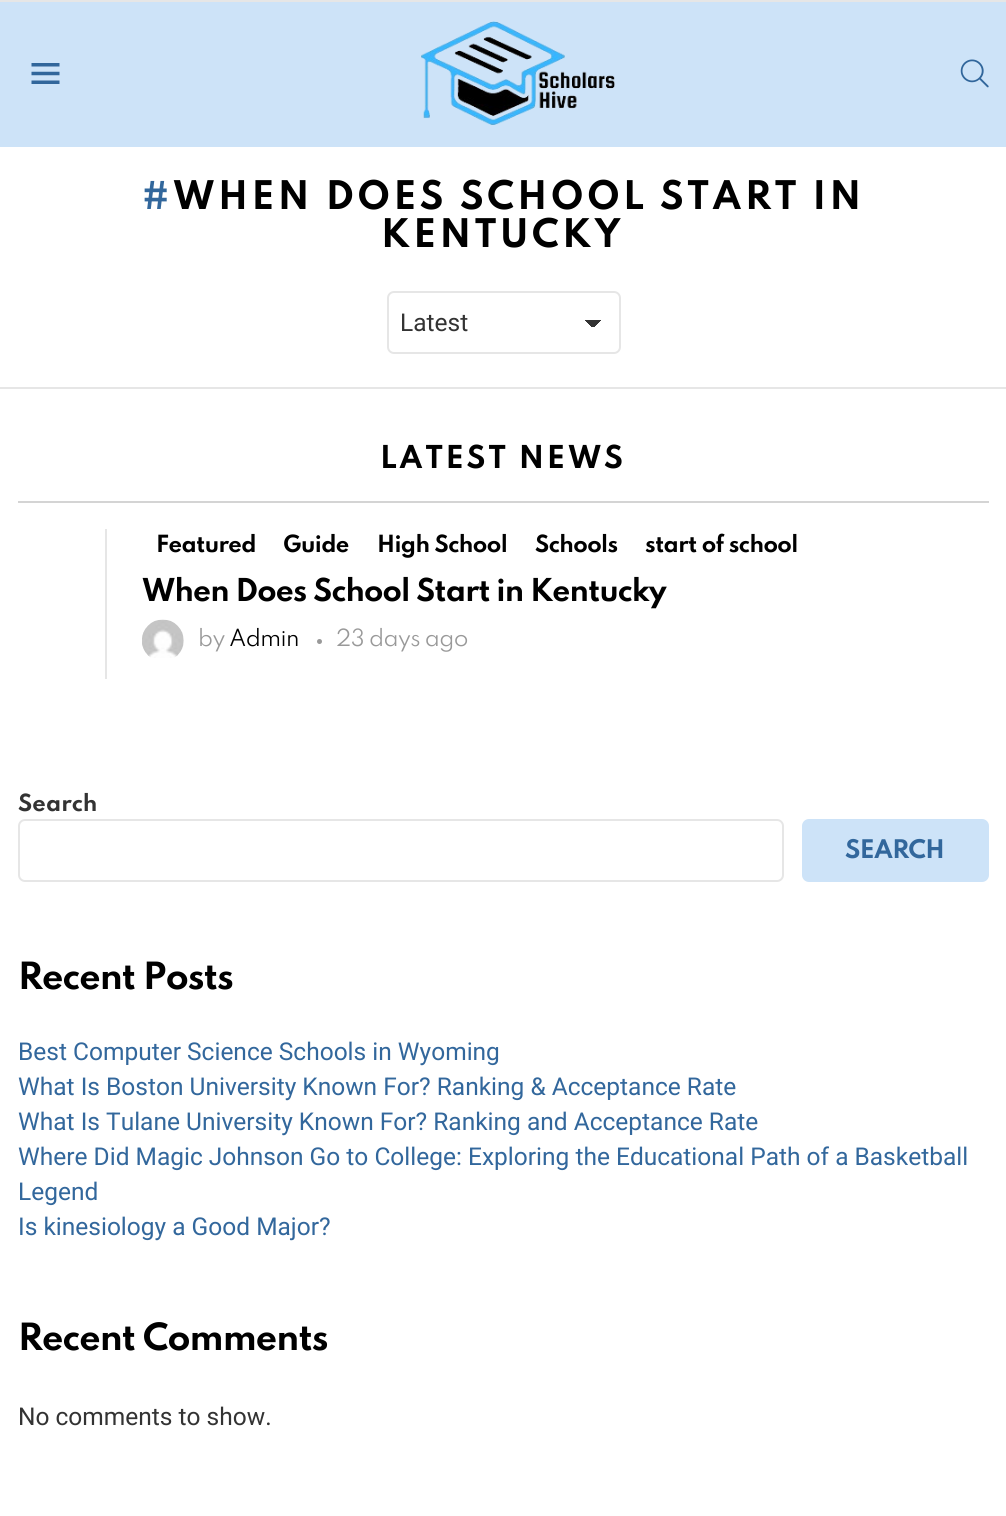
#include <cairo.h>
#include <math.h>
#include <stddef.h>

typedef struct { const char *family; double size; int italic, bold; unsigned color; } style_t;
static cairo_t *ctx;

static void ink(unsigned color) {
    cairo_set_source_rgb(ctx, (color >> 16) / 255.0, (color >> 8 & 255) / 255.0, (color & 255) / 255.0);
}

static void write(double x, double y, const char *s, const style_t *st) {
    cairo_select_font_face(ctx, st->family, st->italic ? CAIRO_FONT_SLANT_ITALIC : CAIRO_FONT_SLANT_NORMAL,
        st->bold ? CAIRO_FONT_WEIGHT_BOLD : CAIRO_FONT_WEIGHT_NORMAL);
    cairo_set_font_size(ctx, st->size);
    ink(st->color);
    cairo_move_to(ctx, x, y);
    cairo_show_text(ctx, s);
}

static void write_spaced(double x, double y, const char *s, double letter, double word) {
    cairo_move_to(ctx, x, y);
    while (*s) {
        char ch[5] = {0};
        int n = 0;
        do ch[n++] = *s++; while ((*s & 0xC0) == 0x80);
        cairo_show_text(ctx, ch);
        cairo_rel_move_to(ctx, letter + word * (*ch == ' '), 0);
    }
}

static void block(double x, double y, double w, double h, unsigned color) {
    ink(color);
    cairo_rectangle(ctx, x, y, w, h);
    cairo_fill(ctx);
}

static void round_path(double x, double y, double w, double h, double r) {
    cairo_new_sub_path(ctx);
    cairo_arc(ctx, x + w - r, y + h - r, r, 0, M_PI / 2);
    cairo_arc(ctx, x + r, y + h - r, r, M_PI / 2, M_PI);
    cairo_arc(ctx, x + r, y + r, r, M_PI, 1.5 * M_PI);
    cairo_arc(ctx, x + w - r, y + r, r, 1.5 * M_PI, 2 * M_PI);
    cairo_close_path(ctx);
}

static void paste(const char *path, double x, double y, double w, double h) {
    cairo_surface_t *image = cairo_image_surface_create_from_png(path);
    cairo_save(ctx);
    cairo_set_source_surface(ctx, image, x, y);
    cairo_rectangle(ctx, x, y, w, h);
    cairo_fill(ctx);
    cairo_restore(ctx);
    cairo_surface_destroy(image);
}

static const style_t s1 = {"Roboto", 24.5, 0, 0, 0x333333};
static const style_t s2 = {"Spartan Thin", 21, 0, 1, 0x333333};
static const style_t s3 = {"Roboto", 24.5, 0, 0, 0x32679c};

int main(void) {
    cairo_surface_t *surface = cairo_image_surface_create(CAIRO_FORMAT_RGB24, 1006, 1516);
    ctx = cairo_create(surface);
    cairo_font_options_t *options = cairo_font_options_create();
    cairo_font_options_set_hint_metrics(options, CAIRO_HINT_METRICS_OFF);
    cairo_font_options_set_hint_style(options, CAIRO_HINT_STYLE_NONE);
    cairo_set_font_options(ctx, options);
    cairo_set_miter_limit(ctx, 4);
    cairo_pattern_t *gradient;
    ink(0xffffff);
    cairo_paint(ctx);
    block(0, 0, 1006, 2, 0xe6e6e6);
    block(0, 2, 1006, 145, 0xcde3f8);
    paste("pic1.png", 31, 63, 29, 21);
    paste("pic2.png", 421, 21, 194, 104);
    paste("pic3.png", 960, 59, 29, 29);
    cairo_select_font_face(ctx, "Spartan Thin", CAIRO_FONT_SLANT_NORMAL, CAIRO_FONT_WEIGHT_BOLD);
    cairo_set_font_size(ctx, 35);
    ink(0x32679c);
    write_spaced(142, 209, "#", 3.4, 0);
    ink(0x000000);
    write_spaced(173, 209, "WHEN DOES SCHOOL START IN", 3.4, 0);
    write_spaced(381, 247, "KENTUCKY", 3.4, 0);
    gradient = cairo_pattern_create_linear(594, 320, 602, 328);
    cairo_pattern_add_color_stop_rgba(gradient, 0.5, 0.2, 0.2, 0.2, 1);
    cairo_pattern_add_color_stop_rgba(gradient, 0.5, 1, 1, 1, 1);
    cairo_set_source(ctx, gradient);
    cairo_pattern_destroy(gradient);
    cairo_rectangle(ctx, 593, 320, 9, 7);
    cairo_fill(ctx);
    gradient = cairo_pattern_create_linear(585, 328, 593, 320);
    cairo_pattern_add_color_stop_rgba(gradient, 0.5, 1, 1, 1, 1);
    cairo_pattern_add_color_stop_rgba(gradient, 0.5, 0.2, 0.2, 0.2, 1);
    cairo_set_source(ctx, gradient);
    cairo_pattern_destroy(gradient);
    cairo_rectangle(ctx, 585, 320, 8, 7);
    cairo_fill(ctx);
    round_path(388, 292, 232, 61, 6);
    ink(0xe6e6e6);
    cairo_stroke(ctx);
    write(400, 331, "Latest", &s1);
    block(0, 387, 1006, 2, 0xe6e6e6);
    cairo_select_font_face(ctx, "Spartan Thin", CAIRO_FONT_SLANT_NORMAL, CAIRO_FONT_WEIGHT_BOLD);
    cairo_set_font_size(ctx, 28);
    ink(0x000000);
    write_spaced(380, 468, "LATEST NEWS", 2.75, 0);
    block(18, 501, 971, 2, 0xd4d4d4);
    block(105, 529, 2, 150, 0xe6e6e6);
    cairo_set_font_size(ctx, 21);
    ink(0x000000);
    write_spaced(156, 552, "Featured", -0.6, 0);
    write_spaced(283, 552, "Guide", -0.6, 0);
    write_spaced(377, 552, "High School", -0.6, 0);
    write_spaced(535, 552, "Schools", -0.6, 0);
    write_spaced(645, 552, "start of school", -0.6, 0);
    cairo_set_font_size(ctx, 28);
    write_spaced(142, 601, "When Does School Start in Kentucky", -0.85, 0);
    cairo_select_font_face(ctx, "Spartan Thin", CAIRO_FONT_SLANT_NORMAL, CAIRO_FONT_WEIGHT_NORMAL);
    cairo_set_font_size(ctx, 21);
    ink(0x999999);
    write_spaced(198, 646, "by", -0.6, 0);
    paste("pic4.png", 142, 619, 42, 39);
    ink(0x000000);
    write_spaced(229, 646, "Admin", -0.6, 0);
    ink(0x999999);
    cairo_new_path(ctx);
    cairo_arc(ctx, 319.5, 641.5, 2.5, 0, 2 * M_PI);
    cairo_fill(ctx);
    write_spaced(336, 646, "23 days ago", -0.6, 0);
    write(18, 811, "Search", &s2);
    round_path(19, 820, 764, 61, 6);
    ink(0xe6e6e6);
    cairo_stroke(ctx);
    ink(0xcde3f8);
    round_path(804, 821, 183, 59, 5);
    cairo_fill_preserve(ctx);
    cairo_set_line_width(ctx, 4);
    cairo_stroke(ctx);
    cairo_set_font_size(ctx, 22.75);
    ink(0x32679c);
    write_spaced(845, 858, "SEARCH", -0.75, 0);
    cairo_set_font_size(ctx, 33.25);
    ink(0x000000);
    write_spaced(18, 989, "Recent Posts", -1, 0);
    write(18, 1060, "Best Computer Science Schools in Wyoming", &s3);
    write(18, 1095, "What Is Boston University Known For? Ranking & Acceptance Rate", &s3);
    write(18, 1130, "What Is Tulane University Known For? Ranking and Acceptance Rate", &s3);
    write(18, 1165, "Where Did Magic Johnson Go to College: Exploring the Educational Path of a Basketball", &s3);
    write(18, 1200, "Legend", &s3);
    write(18, 1235, "Is kinesiology a Good Major?", &s3);
    cairo_select_font_face(ctx, "Spartan Thin", CAIRO_FONT_SLANT_NORMAL, CAIRO_FONT_WEIGHT_BOLD);
    cairo_set_font_size(ctx, 33.25);
    ink(0x000000);
    write_spaced(18, 1350, "Recent Comments", -1, 0);
    write(18, 1425, "No comments to show.", &s1);
    cairo_surface_write_to_png(surface, "screenshot.png");
    cairo_font_options_destroy(options);
    cairo_destroy(ctx);
    cairo_surface_destroy(surface);
    return 0;
}
